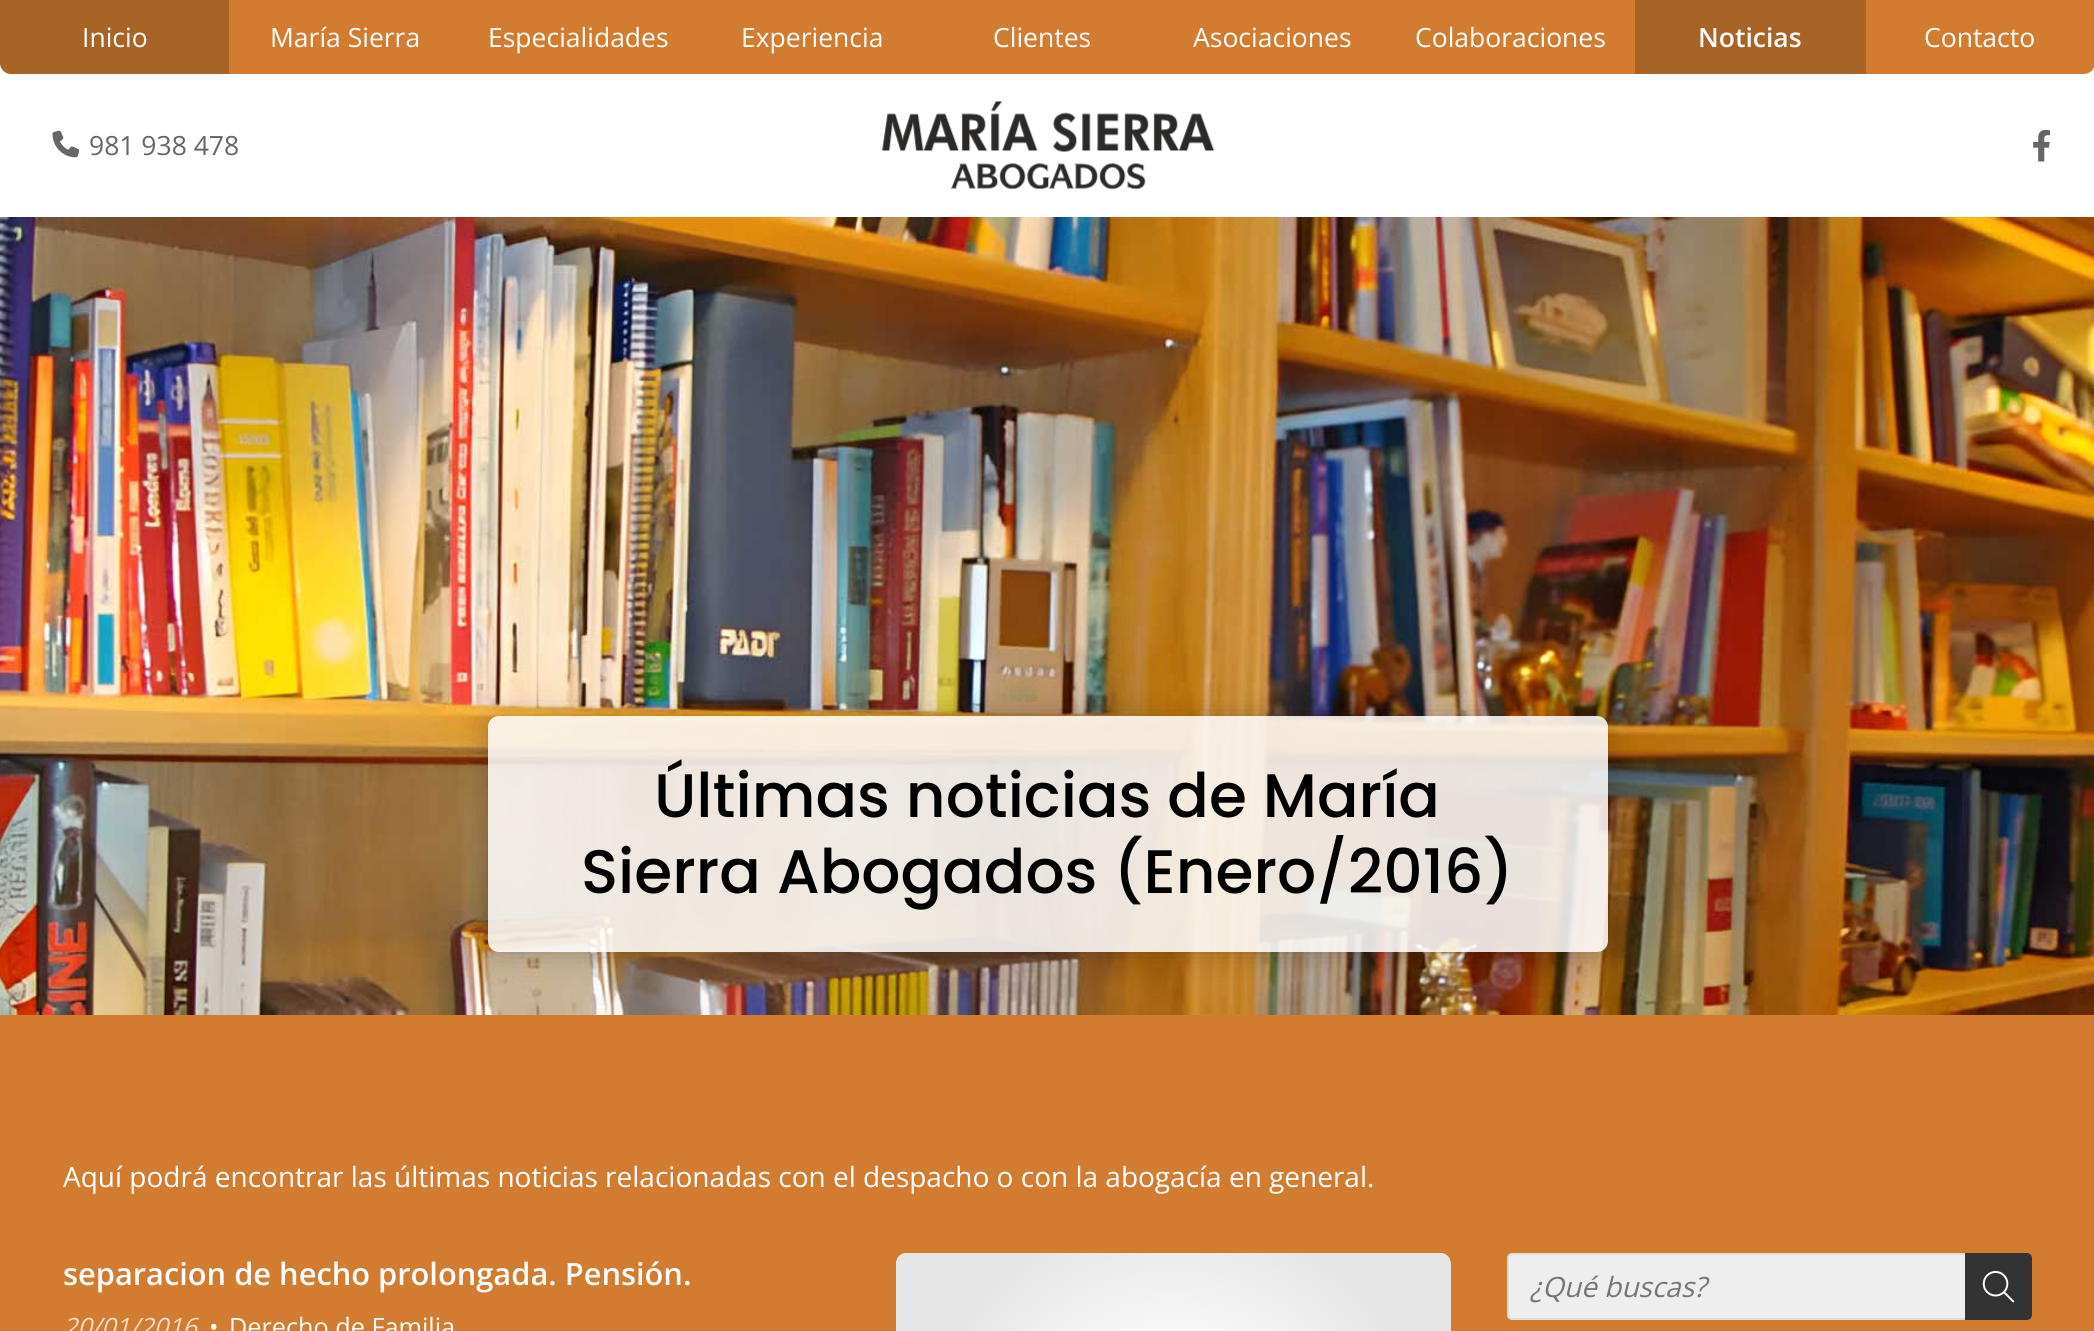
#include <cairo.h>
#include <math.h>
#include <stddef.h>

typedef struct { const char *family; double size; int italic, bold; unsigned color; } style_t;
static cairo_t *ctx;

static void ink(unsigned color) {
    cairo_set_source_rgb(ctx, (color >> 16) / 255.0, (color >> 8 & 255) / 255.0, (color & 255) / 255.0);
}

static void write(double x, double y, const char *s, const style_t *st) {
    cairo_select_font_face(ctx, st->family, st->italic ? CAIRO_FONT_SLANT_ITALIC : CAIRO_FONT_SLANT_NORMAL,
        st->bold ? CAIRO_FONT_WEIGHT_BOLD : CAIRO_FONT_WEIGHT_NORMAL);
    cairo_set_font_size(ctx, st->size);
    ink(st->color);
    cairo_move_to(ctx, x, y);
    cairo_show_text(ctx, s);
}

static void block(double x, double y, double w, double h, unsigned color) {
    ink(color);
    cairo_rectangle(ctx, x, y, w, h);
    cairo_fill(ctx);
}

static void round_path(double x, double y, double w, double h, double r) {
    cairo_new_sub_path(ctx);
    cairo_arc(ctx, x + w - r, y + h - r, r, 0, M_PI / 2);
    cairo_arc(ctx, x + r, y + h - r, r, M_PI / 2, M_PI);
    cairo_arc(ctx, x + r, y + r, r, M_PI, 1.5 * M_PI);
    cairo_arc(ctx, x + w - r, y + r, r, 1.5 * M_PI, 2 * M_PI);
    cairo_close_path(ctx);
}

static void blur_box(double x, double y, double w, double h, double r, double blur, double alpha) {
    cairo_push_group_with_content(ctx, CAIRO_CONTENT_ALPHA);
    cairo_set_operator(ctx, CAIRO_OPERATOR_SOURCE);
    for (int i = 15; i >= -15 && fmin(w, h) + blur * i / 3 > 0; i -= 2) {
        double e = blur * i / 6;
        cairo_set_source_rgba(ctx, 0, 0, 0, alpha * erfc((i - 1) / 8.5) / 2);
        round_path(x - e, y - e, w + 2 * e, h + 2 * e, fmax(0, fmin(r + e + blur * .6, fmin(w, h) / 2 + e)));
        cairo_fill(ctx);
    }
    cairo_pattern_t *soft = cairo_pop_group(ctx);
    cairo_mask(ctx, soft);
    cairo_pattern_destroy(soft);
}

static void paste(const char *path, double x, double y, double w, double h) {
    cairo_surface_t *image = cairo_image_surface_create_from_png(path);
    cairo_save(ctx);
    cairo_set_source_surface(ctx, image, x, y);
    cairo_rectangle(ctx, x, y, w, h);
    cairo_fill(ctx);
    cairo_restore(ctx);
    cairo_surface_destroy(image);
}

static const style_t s1 = {"Open Sans", 26.5, 0, 0, 0xffffff};
static const style_t s2 = {"Open Sans SemiBold", 26.5, 0, 0, 0xffffff};
static const style_t s3 = {"Open Sans", 26.5, 0, 0, 0x666666};
static const style_t s4 = {"Poppins Medium", 61.4, 0, 0, 0x000000};
static const style_t s5 = {"Open Sans", 28, 0, 0, 0xffffff};
static const style_t s6 = {"Open Sans SemiBold", 30.8, 0, 0, 0xffffff};
static const style_t s7 = {"Open Sans", 25.25, 1, 0, 0xf4decc};
static const style_t s8 = {"Open Sans", 25.25, 0, 0, 0xffffff};
static const style_t s9 = {"Open Sans", 28, 1, 0, 0x757575};

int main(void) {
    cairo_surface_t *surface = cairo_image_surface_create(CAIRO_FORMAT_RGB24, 2094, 1331);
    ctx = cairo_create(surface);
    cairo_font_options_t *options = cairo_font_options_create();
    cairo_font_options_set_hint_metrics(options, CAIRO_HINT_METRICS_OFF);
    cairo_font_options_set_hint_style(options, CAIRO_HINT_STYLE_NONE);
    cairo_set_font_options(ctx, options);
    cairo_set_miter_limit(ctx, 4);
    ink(0xffffff);
    cairo_paint(ctx);
    ink(0xd27c31);
    cairo_new_path(ctx);
    cairo_move_to(ctx, 0, 0);
    cairo_line_to(ctx, 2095, 0);
    cairo_line_to(ctx, 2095, 63);
    cairo_curve_to(ctx, 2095, 69, 2090, 74, 2084, 74);
    cairo_line_to(ctx, 11, 74);
    cairo_curve_to(ctx, 5, 74, 0, 69, 0, 63);
    cairo_close_path(ctx);
    cairo_fill(ctx);
    cairo_set_source_rgba(ctx, 0, 0, 0, 0.2);
    cairo_new_path(ctx);
    cairo_move_to(ctx, 0, 0);
    cairo_line_to(ctx, 229, 0);
    cairo_line_to(ctx, 229, 74);
    cairo_line_to(ctx, 11, 74);
    cairo_curve_to(ctx, 5, 74, 0, 69, 0, 63);
    cairo_close_path(ctx);
    cairo_fill(ctx);
    write(82, 47, "Inicio", &s1);
    write(270, 47, "María Sierra", &s1);
    write(488, 47, "Especialidades", &s1);
    write(741, 47, "Experiencia", &s1);
    write(993, 47, "Clientes", &s1);
    write(1193, 47, "Asociaciones", &s1);
    write(1415, 47, "Colaboraciones", &s1);
    block(1635, 0, 231, 74, 0xa86327);
    write(1698, 47, "Noticias", &s2);
    write(1924, 47, "Contacto", &s1);
    paste("pic1.png", 52, 130, 28, 28);
    write(89, 155, "981 938 478", &s3);
    paste("pic2.png", 882, 101, 333, 89);
    paste("pic3.png", 2033, 129, 17, 33);
    paste("pic4.png", 0, 217, 2094, 798);
    cairo_save(ctx);
    cairo_set_fill_rule(ctx, CAIRO_FILL_RULE_EVEN_ODD);
    cairo_new_path(ctx);
    cairo_move_to(ctx, 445, 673);
    cairo_line_to(ctx, 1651, 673);
    cairo_line_to(ctx, 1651, 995);
    cairo_line_to(ctx, 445, 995);
    cairo_close_path(ctx);
    cairo_move_to(ctx, 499, 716);
    cairo_line_to(ctx, 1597, 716);
    cairo_curve_to(ctx, 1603, 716, 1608, 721, 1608, 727);
    cairo_line_to(ctx, 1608, 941);
    cairo_curve_to(ctx, 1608, 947, 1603, 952, 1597, 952);
    cairo_line_to(ctx, 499, 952);
    cairo_curve_to(ctx, 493, 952, 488, 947, 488, 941);
    cairo_line_to(ctx, 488, 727);
    cairo_curve_to(ctx, 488, 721, 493, 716, 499, 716);
    cairo_close_path(ctx);
    cairo_clip(ctx);
    ink(0x000000);
    blur_box(488, 716, 1120, 236, 11, 14, 0.25);
    cairo_restore(ctx);
    cairo_set_source_rgba(ctx, 1, 1, 1, 0.85);
    round_path(488, 716, 1120, 236, 11);
    cairo_fill(ctx);
    write(654, 817, "Últimas noticias de María", &s4);
    write(581, 893, "Sierra Abogados (Enero/2016)", &s4);
    block(0, 1015, 2094, 316, 0xd27c31);
    write(63, 1187, "Aquí podrá encontrar las últimas noticias relacionadas con el despacho o con la abogacía en general.", &s5);
    write(63, 1285, "separacion de hecho prolongada. Pensión.", &s6);
    write(63, 1336, "20/01/2016", &s7);
    write(209, 1336, "•", &s8);
    write(229, 1336, "Derecho de Familia", &s8);
    paste("pic5.png", 896, 1253, 555, 78);
    ink(0xeeeeee);
    round_path(1508, 1254, 523, 65, 4);
    cairo_fill_preserve(ctx);
    ink(0xdddddd);
    cairo_stroke(ctx);
    write(1530, 1297, "¿Qué buscas?", &s9);
    ink(0x333333);
    cairo_new_path(ctx);
    cairo_move_to(ctx, 1965, 1253);
    cairo_line_to(ctx, 2027, 1253);
    cairo_curve_to(ctx, 2030, 1253, 2032, 1255, 2032, 1258);
    cairo_line_to(ctx, 2032, 1315);
    cairo_curve_to(ctx, 2032, 1318, 2030, 1320, 2027, 1320);
    cairo_line_to(ctx, 1965, 1320);
    cairo_close_path(ctx);
    cairo_fill(ctx);
    paste("pic6.png", 1982, 1270, 33, 33);
    cairo_surface_write_to_png(surface, "screenshot.png");
    cairo_font_options_destroy(options);
    cairo_destroy(ctx);
    cairo_surface_destroy(surface);
    return 0;
}
